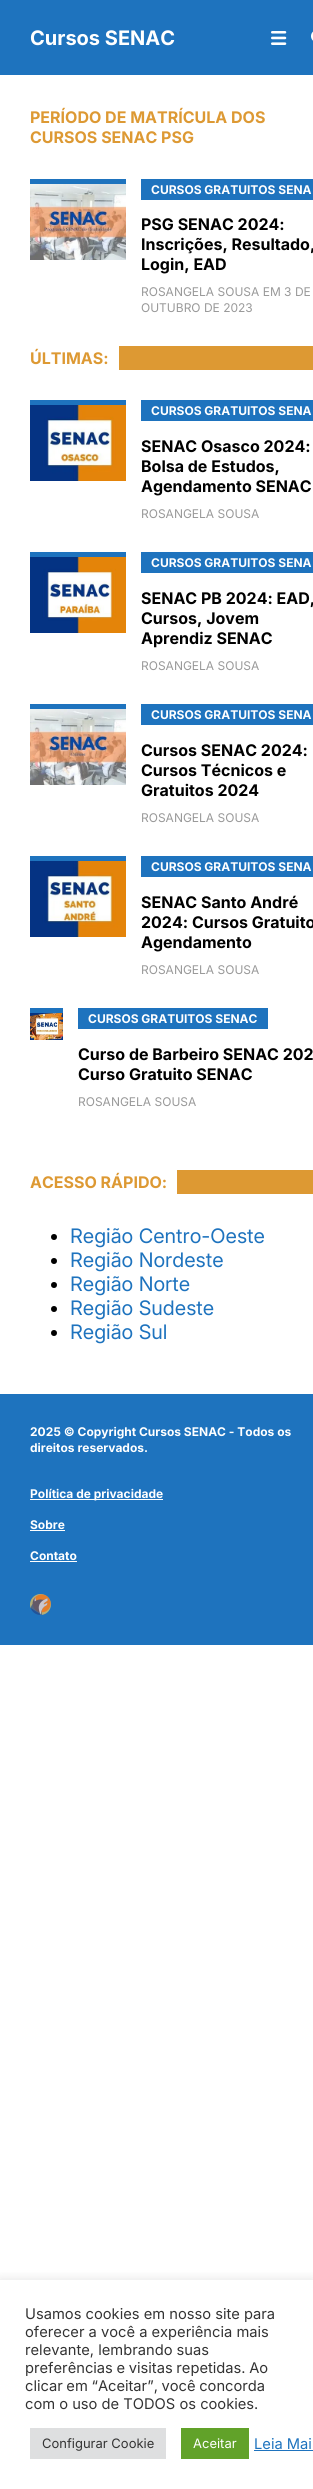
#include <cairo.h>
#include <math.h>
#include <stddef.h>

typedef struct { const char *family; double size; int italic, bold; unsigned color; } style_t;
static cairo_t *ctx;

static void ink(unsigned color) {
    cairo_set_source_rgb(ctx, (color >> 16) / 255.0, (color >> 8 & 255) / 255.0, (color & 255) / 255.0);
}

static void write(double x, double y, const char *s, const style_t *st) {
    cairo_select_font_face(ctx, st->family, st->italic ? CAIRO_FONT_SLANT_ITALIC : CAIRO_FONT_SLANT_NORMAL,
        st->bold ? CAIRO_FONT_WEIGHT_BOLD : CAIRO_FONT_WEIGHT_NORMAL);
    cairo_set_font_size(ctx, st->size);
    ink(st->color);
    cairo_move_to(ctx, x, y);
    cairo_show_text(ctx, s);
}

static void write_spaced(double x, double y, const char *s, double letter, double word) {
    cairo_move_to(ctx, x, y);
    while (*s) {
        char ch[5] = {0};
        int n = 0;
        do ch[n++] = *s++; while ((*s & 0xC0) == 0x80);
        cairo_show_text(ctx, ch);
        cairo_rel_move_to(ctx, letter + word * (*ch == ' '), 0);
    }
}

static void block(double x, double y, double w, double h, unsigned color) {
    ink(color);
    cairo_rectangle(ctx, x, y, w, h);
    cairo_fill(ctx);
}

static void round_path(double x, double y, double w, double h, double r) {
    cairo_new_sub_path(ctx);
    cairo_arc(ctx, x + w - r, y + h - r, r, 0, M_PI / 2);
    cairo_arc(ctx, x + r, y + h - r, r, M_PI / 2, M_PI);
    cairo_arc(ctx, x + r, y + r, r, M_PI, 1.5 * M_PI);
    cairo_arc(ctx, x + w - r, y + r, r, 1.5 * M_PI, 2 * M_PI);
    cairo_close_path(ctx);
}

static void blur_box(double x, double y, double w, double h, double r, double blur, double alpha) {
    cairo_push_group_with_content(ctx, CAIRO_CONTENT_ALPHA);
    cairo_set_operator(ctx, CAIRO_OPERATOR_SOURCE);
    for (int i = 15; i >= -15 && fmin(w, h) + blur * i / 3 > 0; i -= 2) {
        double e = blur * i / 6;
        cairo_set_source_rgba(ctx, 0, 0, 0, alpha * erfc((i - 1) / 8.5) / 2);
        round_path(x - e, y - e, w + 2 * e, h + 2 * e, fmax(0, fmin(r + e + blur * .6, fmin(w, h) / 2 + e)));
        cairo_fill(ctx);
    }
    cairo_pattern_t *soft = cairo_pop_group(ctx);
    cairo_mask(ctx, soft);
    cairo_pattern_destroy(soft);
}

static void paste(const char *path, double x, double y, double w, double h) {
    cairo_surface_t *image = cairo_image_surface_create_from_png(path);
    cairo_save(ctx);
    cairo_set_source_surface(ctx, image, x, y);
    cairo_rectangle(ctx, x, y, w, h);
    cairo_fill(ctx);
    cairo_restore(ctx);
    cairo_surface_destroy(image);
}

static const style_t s1 = {"Inter", 20, 0, 1, 0xffffff};
static const style_t s2 = {"Inter", 16, 0, 1, 0xdd9933};
static const style_t s3 = {"Inter", 12, 0, 1, 0xffffff};
static const style_t s4 = {"Inter", 16, 0, 1, 0x000000};
static const style_t s5 = {"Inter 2", 12, 0, 0, 0x999999};
static const style_t s6 = {"Inter", 20, 0, 0, 0x1e73be};
static const style_t s7 = {"Inter 2", 14.7, 0, 0, 0x333333};
static const style_t s8 = {"Inter 2", 13, 0, 0, 0x333333};
static const style_t s9 = {"Inter 2", 13, 0, 0, 0xffffff};
static const style_t s10 = {"Inter 2", 14.7, 0, 0, 0x1e73be};

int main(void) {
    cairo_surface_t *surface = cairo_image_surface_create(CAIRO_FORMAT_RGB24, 313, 2489);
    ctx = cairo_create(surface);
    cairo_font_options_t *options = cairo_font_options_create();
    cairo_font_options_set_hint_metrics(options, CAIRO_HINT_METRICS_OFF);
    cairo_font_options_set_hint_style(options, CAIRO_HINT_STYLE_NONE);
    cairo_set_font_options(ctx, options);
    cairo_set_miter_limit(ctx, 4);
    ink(0xffffff);
    cairo_paint(ctx);
    block(0, 0, 313, 75, 0x1e73be);
    write(30, 45, "Cursos SENAC", &s1);
    paste("pic1.png", 271, 31, 16, 14);
    paste("pic2.png", 311, 31, 2, 10);
    write(30, 123, "PERÍODO DE MATRÍCULA DOS", &s2);
    write(30, 143, "CURSOS SENAC PSG", &s2);
    block(30, 179, 96, 5, 0x1e73be);
    paste("pic3.png", 30, 184, 96, 76);
    block(141, 179, 172, 21, 0x1e73be);
    write(151, 194, "CURSOS GRATUITOS SENA", &s3);
    write(141, 230, "PSG SENAC 2024:", &s4);
    write(141, 250, "Inscrições, Resultado,", &s4);
    write(141, 270, "Login, EAD", &s4);
    write(141, 296, "ROSANGELA SOUSA EM 3 DE", &s5);
    write(141, 312, "OUTUBRO DE 2023", &s5);
    block(119, 346, 194, 24, 0xdd9933);
    write(30, 364, "ÚLTIMAS:", &s2);
    block(30, 400, 96, 5, 0x1e73be);
    paste("pic4.png", 30, 405, 96, 76);
    block(141, 400, 172, 21, 0x1e73be);
    write(151, 415, "CURSOS GRATUITOS SENA", &s3);
    write(141, 452, "SENAC Osasco 2024:", &s4);
    write(141, 472, "Bolsa de Estudos,", &s4);
    write(141, 492, "Agendamento SENAC", &s4);
    write(141, 518, "ROSANGELA SOUSA", &s5);
    block(30, 552, 96, 5, 0x1e73be);
    paste("pic5.png", 30, 557, 96, 76);
    block(141, 552, 172, 21, 0x1e73be);
    write(151, 567, "CURSOS GRATUITOS SENA", &s3);
    write(141, 604, "SENAC PB 2024: EAD,", &s4);
    write(141, 624, "Cursos, Jovem", &s4);
    write(141, 644, "Aprendiz SENAC", &s4);
    write(141, 670, "ROSANGELA SOUSA", &s5);
    block(30, 704, 96, 5, 0x1e73be);
    paste("pic6.png", 30, 709, 96, 76);
    block(141, 704, 172, 21, 0x1e73be);
    write(151, 719, "CURSOS GRATUITOS SENA", &s3);
    write(141, 756, "Cursos SENAC 2024:", &s4);
    write(141, 776, "Cursos Técnicos e", &s4);
    write(141, 796, "Gratuitos 2024", &s4);
    write(141, 822, "ROSANGELA SOUSA", &s5);
    block(30, 856, 96, 5, 0x1e73be);
    paste("pic7.png", 30, 861, 96, 76);
    block(141, 856, 172, 21, 0x1e73be);
    write(151, 871, "CURSOS GRATUITOS SENA", &s3);
    write(141, 908, "SENAC Santo André", &s4);
    write(141, 928, "2024: Cursos Gratuito", &s4);
    write(141, 948, "Agendamento", &s4);
    write(141, 974, "ROSANGELA SOUSA", &s5);
    block(30, 1008, 33, 5, 0x1e73be);
    paste("pic8.png", 30, 1013, 33, 27);
    block(78, 1008, 190, 21, 0x1e73be);
    write(88, 1023, "CURSOS GRATUITOS SENAC", &s3);
    write(78, 1060, "Curso de Barbeiro SENAC 202", &s4);
    write(78, 1080, "Curso Gratuito SENAC", &s4);
    write(78, 1106, "ROSANGELA SOUSA", &s5);
    block(177, 1170, 136, 24, 0xdd9933);
    write(30, 1188, "ACESSO RÁPIDO:", &s2);
    ink(0x000000);
    cairo_new_path(ctx);
    cairo_arc(ctx, 54, 1237, 3, 0, 2 * M_PI);
    cairo_fill(ctx);
    write(70, 1243, "Região Centro-Oeste", &s6);
    ink(0x000000);
    cairo_new_path(ctx);
    cairo_arc(ctx, 54, 1261, 3, 0, 2 * M_PI);
    cairo_fill(ctx);
    write(70, 1267, "Região Nordeste", &s6);
    ink(0x000000);
    cairo_new_path(ctx);
    cairo_arc(ctx, 54, 1285, 3, 0, 2 * M_PI);
    cairo_fill(ctx);
    write(70, 1291, "Região Norte", &s6);
    ink(0x000000);
    cairo_new_path(ctx);
    cairo_arc(ctx, 54, 1309, 3, 0, 2 * M_PI);
    cairo_fill(ctx);
    write(70, 1315, "Região Sudeste", &s6);
    ink(0x000000);
    cairo_new_path(ctx);
    cairo_arc(ctx, 54, 1333, 3, 0, 2 * M_PI);
    cairo_fill(ctx);
    write(70, 1339, "Região Sul", &s6);
    block(0, 1394, 313, 251, 0x1e73be);
    write(30, 1436, "2025 © Copyright Cursos SENAC - Todos os", &s3);
    write(30, 1452, "direitos reservados.", &s3);
    block(30, 1499, 133, 1, 0xffffff);
    write(30, 1498, "Política de privacidade", &s3);
    write(30, 1529, "Sobre", &s3);
    block(30, 1530, 35, 1, 0xffffff);
    write(30, 1560, "Contato", &s3);
    block(30, 1561, 47, 1, 0xffffff);
    paste("pic9.png", 30, 1594, 21, 21);
    cairo_save(ctx);
    cairo_rectangle(ctx, 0, 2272, 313, 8);
    cairo_clip(ctx);
    ink(0xacabab);
    blur_box(0, 2279, 313, 209, 0, 5, 0.3);
    cairo_restore(ctx);
    write(25, 2319, "Usamos cookies em nosso site para", &s7);
    write(25, 2337, "oferecer a você a experiência mais", &s7);
    write(25, 2355, "relevante, lembrando suas", &s7);
    write_spaced(25, 2373, "preferências e visitas repetidas. Ao", 0, -0.5);
    write_spaced(25, 2391, "clicar em “Aceitar”, você concorda", 0, -0.5);
    write(25, 2409, "com o uso de TODOS os cookies.", &s7);
    block(30, 2428, 136, 31, 0xdedfe0);
    write(42, 2448, "Configurar Cookie", &s8);
    block(181, 2428, 68, 31, 0x61a229);
    write(193, 2448, "Aceitar", &s9);
    write(254, 2449, "Leia Mai", &s10);
    block(254, 2450, 59, 1, 0x1e73be);
    cairo_surface_write_to_png(surface, "screenshot.png");
    cairo_font_options_destroy(options);
    cairo_destroy(ctx);
    cairo_surface_destroy(surface);
    return 0;
}
